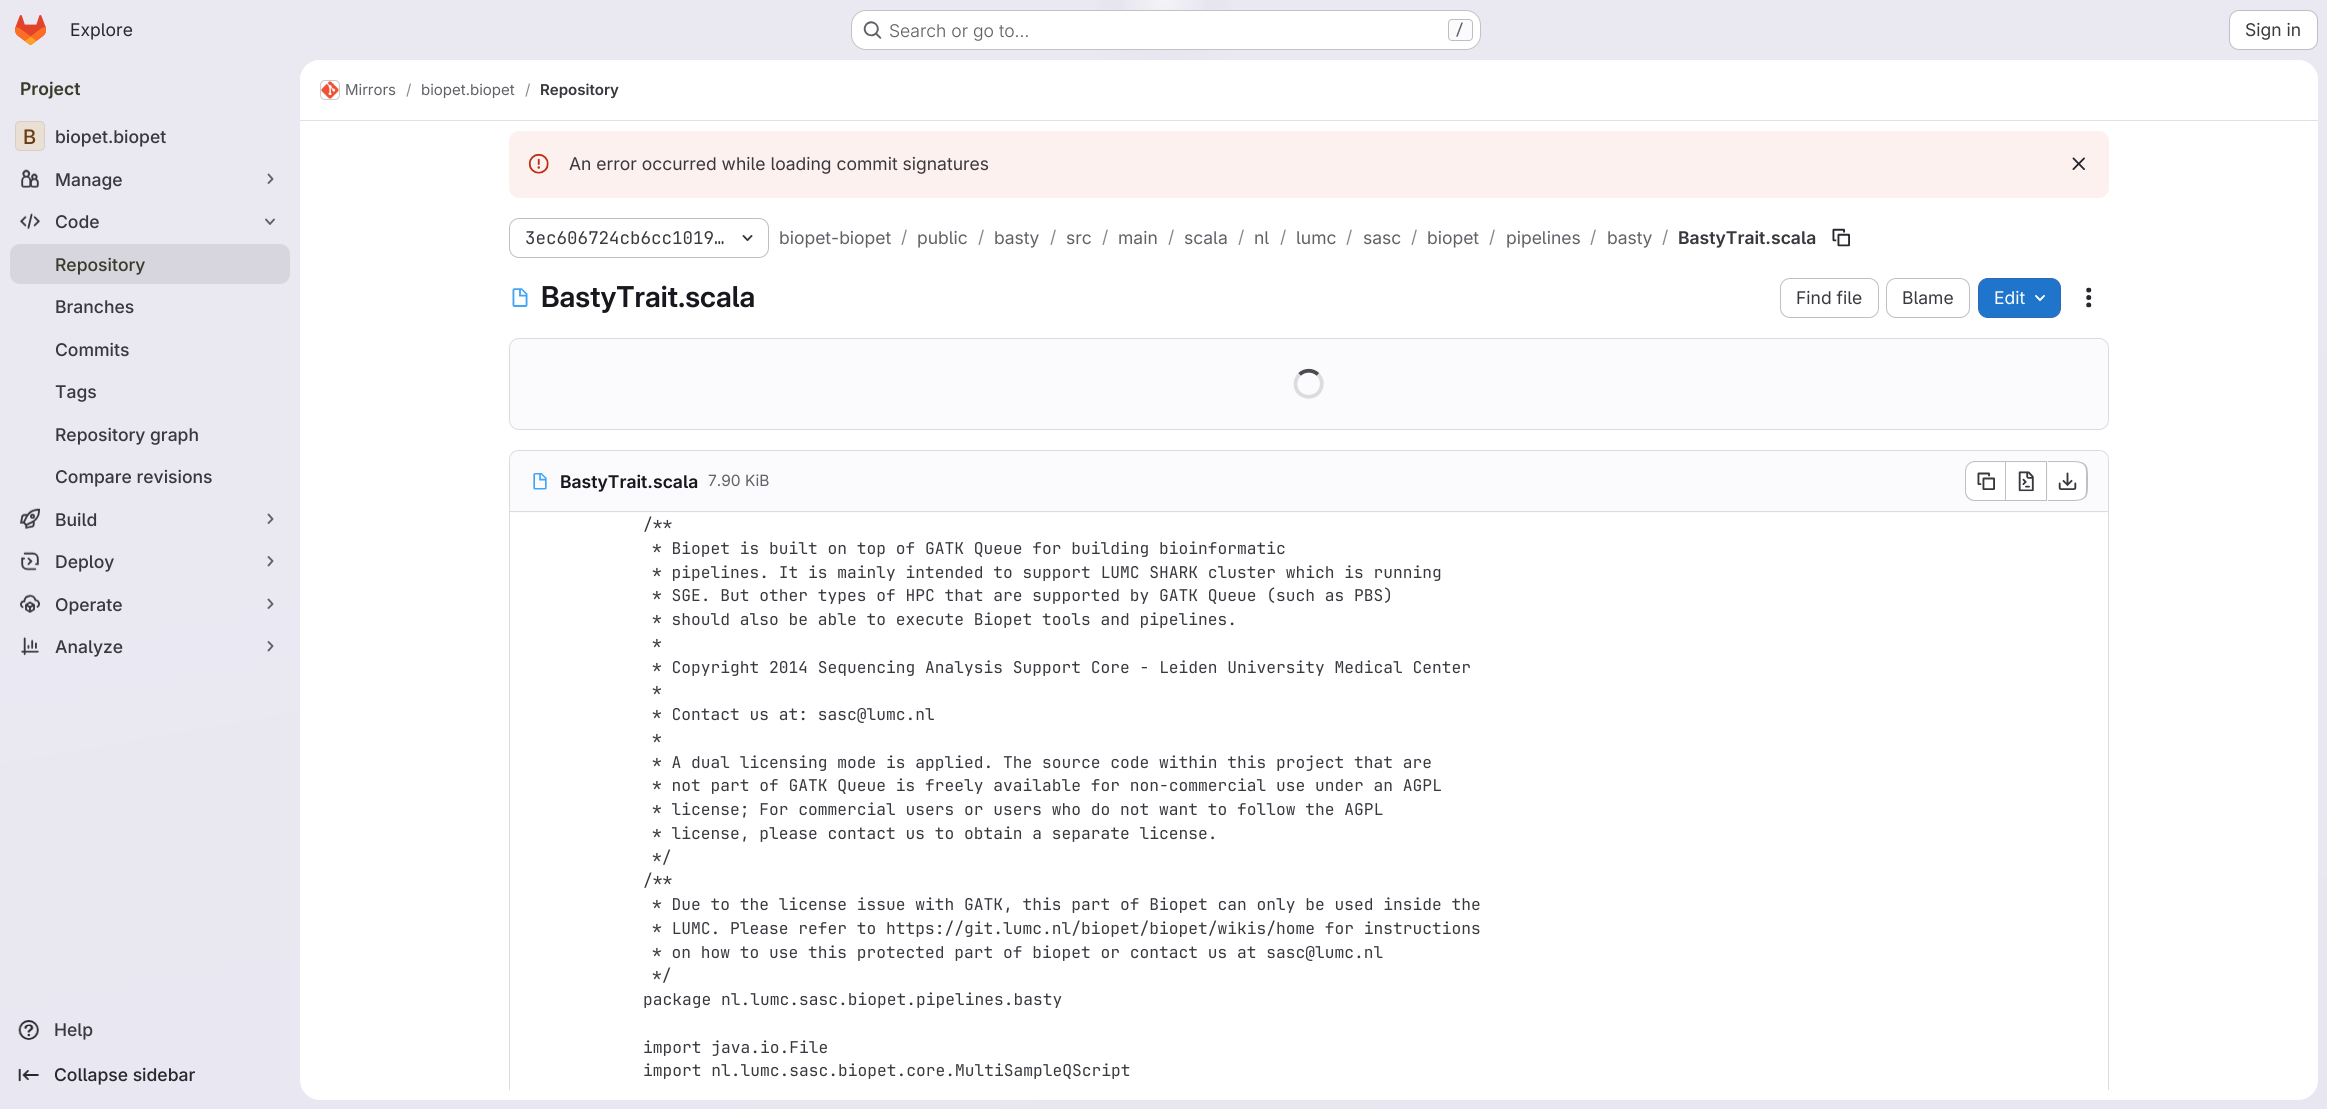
#include <cairo.h>
#include <math.h>
#include <stddef.h>

typedef struct { const char *family; double size; int italic, bold; unsigned color; } style_t;
static cairo_t *ctx;

static void ink(unsigned color) {
    cairo_set_source_rgb(ctx, (color >> 16) / 255.0, (color >> 8 & 255) / 255.0, (color & 255) / 255.0);
}

static void write(double x, double y, const char *s, const style_t *st) {
    cairo_select_font_face(ctx, st->family, st->italic ? CAIRO_FONT_SLANT_ITALIC : CAIRO_FONT_SLANT_NORMAL,
        st->bold ? CAIRO_FONT_WEIGHT_BOLD : CAIRO_FONT_WEIGHT_NORMAL);
    cairo_set_font_size(ctx, st->size);
    ink(st->color);
    cairo_move_to(ctx, x, y);
    cairo_show_text(ctx, s);
}

static void block(double x, double y, double w, double h, unsigned color) {
    ink(color);
    cairo_rectangle(ctx, x, y, w, h);
    cairo_fill(ctx);
}

static void round_path(double x, double y, double w, double h, double r) {
    cairo_new_sub_path(ctx);
    cairo_arc(ctx, x + w - r, y + h - r, r, 0, M_PI / 2);
    cairo_arc(ctx, x + r, y + h - r, r, M_PI / 2, M_PI);
    cairo_arc(ctx, x + r, y + r, r, M_PI, 1.5 * M_PI);
    cairo_arc(ctx, x + w - r, y + r, r, 1.5 * M_PI, 2 * M_PI);
    cairo_close_path(ctx);
}

static void paste(const char *path, double x, double y, double w, double h) {
    cairo_surface_t *image = cairo_image_surface_create_from_png(path);
    cairo_save(ctx);
    cairo_set_source_surface(ctx, image, x, y);
    cairo_rectangle(ctx, x, y, w, h);
    cairo_fill(ctx);
    cairo_restore(ctx);
    cairo_surface_destroy(image);
}

static const style_t s1 = {"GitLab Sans", 17.5, 0, 0, 0x28272d};
static const style_t s2 = {"GitLab Sans Light", 17.5, 0, 0, 0x626168};
static const style_t s3 = {"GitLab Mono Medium", 15, 0, 0, 0x626168};
static const style_t s4 = {"GitLab Sans", 17.5, 0, 0, 0x3a383f};
static const style_t s5 = {"GitLab Sans SemiBold", 17.5, 0, 0, 0x393c2a};
static const style_t s6 = {"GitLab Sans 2 Medium", 20, 0, 0, 0x693c14};
static const style_t s7 = {"GitLab Sans Medium", 17.5, 0, 0, 0x3a383f};
static const style_t s8 = {"GitLab Sans Medium", 17.5, 0, 0, 0x393c2a};
static const style_t s9 = {"GitLab Sans Medium", 17.5, 0, 0, 0x28272d};
static const style_t s10 = {"GitLab Sans", 15, 0, 0, 0x626168};
static const style_t s11 = {"GitLab Sans", 15, 0, 0, 0x89888d};
static const style_t s12 = {"GitLab Sans SemiBold", 15, 0, 0, 0x3a383f};
static const style_t s13 = {"GitLab Mono", 17.5, 0, 0, 0x3a383f};
static const style_t s14 = {"GitLab Sans", 17.5, 0, 0, 0x626168};
static const style_t s15 = {"GitLab Sans", 17.5, 0, 0, 0x89888d};
static const style_t s16 = {"GitLab Sans SemiBold", 17.5, 0, 0, 0x3a383f};
static const style_t s17 = {"GitLab Sans 2 SemiBold", 28.75, 0, 0, 0x18171d};
static const style_t s18 = {"GitLab Sans", 17.5, 0, 0, 0xffffff};
static const style_t s19 = {"GitLab Sans SemiBold", 17.5, 0, 0, 0x18171d};
static const style_t s20 = {"GitLab Sans", 15.5, 0, 0, 0x626168};
static const style_t s21 = {"GitLab Mono", 16.25, 0, 0, 0x3a383f};

int main(void) {
    cairo_surface_t *surface = cairo_image_surface_create(CAIRO_FORMAT_RGB24, 2327, 1109);
    ctx = cairo_create(surface);
    cairo_font_options_t *options = cairo_font_options_create();
    cairo_font_options_set_hint_metrics(options, CAIRO_HINT_METRICS_OFF);
    cairo_font_options_set_hint_style(options, CAIRO_HINT_STYLE_NONE);
    cairo_set_font_options(ctx, options);
    cairo_set_miter_limit(ctx, 4);
    cairo_pattern_t *gradient;
    ink(0xffffff);
    cairo_paint(ctx);
    gradient = cairo_pattern_create_linear(1294, 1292, 1034, -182);
    cairo_pattern_add_color_stop_rgba(gradient, 0, 0.91, 0.902, 0.941, 1);
    cairo_pattern_add_color_stop_rgba(gradient, 0.7, 0.918, 0.914, 0.949, 1);
    cairo_set_source(ctx, gradient);
    cairo_pattern_destroy(gradient);
    cairo_rectangle(ctx, 0, 0, 2327, 1109);
    cairo_fill(ctx);
    gradient = cairo_pattern_create_radial(0, 0, 0, 0, 0, 1);
    cairo_pattern_set_matrix(gradient, &(cairo_matrix_t){1.0 / 1164, 0, 0, 1.0 / 1110, -1.0 * 1164 / 1164, -1.0 * 0 / 1110});
    cairo_pattern_add_color_stop_rgba(gradient, 0, 0.894, 0.886, 0.929, 1);
    cairo_pattern_add_color_stop_rgba(gradient, 0.08, 0.894, 0.886, 0.929, 0);
    cairo_set_source(ctx, gradient);
    cairo_pattern_destroy(gradient);
    cairo_rectangle(ctx, 1097, 0, 134, 60);
    cairo_fill(ctx);
    gradient = cairo_pattern_create_radial(1164, 0, 0, 1164, 0, 1608);
    cairo_pattern_add_color_stop_rgba(gradient, 0, 1, 1, 1, 0.6);
    cairo_pattern_add_color_stop_rgba(gradient, 0.03, 1, 1, 1, 0);
    cairo_set_source(ctx, gradient);
    cairo_pattern_destroy(gradient);
    cairo_rectangle(ctx, 1124, 0, 80, 10);
    cairo_fill(ctx);
    paste("pic1.png", 15, 15, 31, 30);
    write(70, 36, "Explore", &s1);
    ink(0xffffff);
    round_path(851, 10, 630, 40, 15);
    cairo_fill(ctx);
    round_path(851.5, 10.5, 629, 39, 14.5);
    cairo_set_source_rgba(ctx, 0.02, 0.02, 0.024, 0.24);
    cairo_set_line_width(ctx, 1);
    cairo_stroke(ctx);
    paste("pic2.png", 863, 21, 19, 18);
    write(889, 37, "Search or go to…", &s2);
    ink(0xfbfafd);
    round_path(1448.5, 19.5, 24, 21, 3.5);
    cairo_fill_preserve(ctx);
    ink(0xbfbfc3);
    cairo_stroke(ctx);
    write(1455, 35, "/", &s3);
    ink(0xffffff);
    round_path(2229.5, 10.5, 88, 39, 9.5);
    cairo_fill_preserve(ctx);
    ink(0xbfbfc3);
    cairo_stroke(ctx);
    write(2245, 36, "Sign in", &s4);
    write(20, 95, "Project", &s5);
    ink(0xeadfd3);
    round_path(15, 121, 30, 30, 5);
    cairo_fill(ctx);
    round_path(15.5, 121.5, 29, 29, 4.5);
    cairo_set_source_rgba(ctx, 0.02, 0.02, 0.024, 0.08);
    cairo_stroke(ctx);
    write(23, 144, "B", &s6);
    write(55, 143, "biopet.biopet", &s7);
    paste("pic3.png", 21, 169, 18, 19);
    write(55, 186, "Manage", &s7);
    cairo_new_path(ctx);
    cairo_move_to(ctx, 268.5, 174.5);
    cairo_line_to(ctx, 272.5, 179);
    cairo_line_to(ctx, 268.5, 183);
    ink(0x626168);
    cairo_set_line_width(ctx, 1.9);
    cairo_set_line_cap(ctx, CAIRO_LINE_CAP_ROUND);
    cairo_set_line_join(ctx, CAIRO_LINE_JOIN_ROUND);
    cairo_stroke(ctx);
    paste("pic4.png", 20, 213, 20, 16);
    write(55, 228, "Code", &s7);
    cairo_new_path(ctx);
    cairo_move_to(ctx, 274, 219.5);
    cairo_line_to(ctx, 270, 224);
    cairo_line_to(ctx, 266, 219.5);
    ink(0x626168);
    cairo_stroke(ctx);
    ink(0xd7d6de);
    round_path(10, 244, 280, 40, 10);
    cairo_fill(ctx);
    write(55, 271, "Repository", &s8);
    write(55, 313, "Branches", &s7);
    write(55, 356, "Commits", &s7);
    write(55, 398, "Tags", &s7);
    write(55, 441, "Repository graph", &s7);
    write(55, 483, "Compare revisions", &s7);
    paste("pic5.png", 20, 508, 20, 21);
    write(55, 526, "Build", &s7);
    cairo_new_path(ctx);
    cairo_move_to(ctx, 268.5, 514.5);
    cairo_line_to(ctx, 272.5, 519);
    cairo_line_to(ctx, 268.5, 523);
    ink(0x626168);
    cairo_stroke(ctx);
    paste("pic6.png", 21, 551, 18, 20);
    write(55, 568, "Deploy", &s7);
    cairo_new_path(ctx);
    cairo_move_to(ctx, 268.5, 557);
    cairo_line_to(ctx, 272.5, 561);
    cairo_line_to(ctx, 268.5, 565.5);
    ink(0x626168);
    cairo_stroke(ctx);
    paste("pic7.png", 20, 594, 20, 19);
    write(55, 611, "Operate", &s7);
    cairo_new_path(ctx);
    cairo_move_to(ctx, 268.5, 599.5);
    cairo_line_to(ctx, 272.5, 604);
    cairo_line_to(ctx, 268.5, 608);
    ink(0x626168);
    cairo_stroke(ctx);
    paste("pic8.png", 21, 636, 18, 20);
    write(55, 653, "Analyze", &s7);
    cairo_new_path(ctx);
    cairo_move_to(ctx, 268.5, 642);
    cairo_line_to(ctx, 272.5, 646);
    cairo_line_to(ctx, 268.5, 650.5);
    ink(0x626168);
    cairo_stroke(ctx);
    paste("pic9.png", 18, 1020, 21, 20);
    write(54, 1036, "Help", &s7);
    paste("pic10.png", 18, 1068, 21, 14);
    write(54, 1081, "Collapse sidebar", &s9);
    ink(0xffffff);
    round_path(300, 60, 2018, 1040, 20);
    cairo_fill(ctx);
    cairo_new_path(ctx);
    cairo_move_to(ctx, 320, 60);
    cairo_line_to(ctx, 2298, 60);
    cairo_curve_to(ctx, 2309, 60, 2318, 69, 2318, 80);
    cairo_line_to(ctx, 2318, 121);
    cairo_line_to(ctx, 300, 121);
    cairo_line_to(ctx, 300, 80);
    cairo_curve_to(ctx, 300, 69, 309, 60, 320, 60);
    cairo_close_path(ctx);
    cairo_fill(ctx);
    block(300, 120, 2018, 1, 0xe1dfec);
    round_path(320.5, 80.5, 19, 19, 4.5);
    ink(0xdcdcde);
    cairo_set_line_width(ctx, 1);
    cairo_set_line_cap(ctx, CAIRO_LINE_CAP_BUTT);
    cairo_set_line_join(ctx, CAIRO_LINE_JOIN_MITER);
    cairo_stroke(ctx);
    paste("pic11.png", 321, 81, 18, 18);
    round_path(320.5, 80.5, 19, 19, 4.5);
    cairo_set_source_rgba(ctx, 0.02, 0.02, 0.024, 0.08);
    cairo_stroke(ctx);
    write(345, 95, "Mirrors", &s10);
    write(406, 95, "/", &s11);
    write(421, 95, "biopet.biopet", &s10);
    write(525, 95, "/", &s11);
    write(540, 95, "Repository", &s12);
    ink(0xfcf1ef);
    round_path(509, 131, 1600, 67, 10);
    cairo_fill(ctx);
    paste("pic12.png", 528, 153, 21, 21);
    write(569, 170, "An error occurred while loading commit signatures", &s4);
    paste("pic13.png", 2072, 157, 13, 13);
    round_path(509.5, 218.5, 259, 39, 9.5);
    ink(0xbfbfc3);
    cairo_stroke(ctx);
    write(525, 244, "3ec606724cb6cc1019…", &s13);
    paste("pic14.png", 742, 235, 11, 6);
    write(779, 244, "biopet-biopet", &s14);
    write(901, 243, "/", &s15);
    write(917, 244, "public", &s14);
    write(978, 243, "/", &s15);
    write(994, 244, "basty", &s14);
    write(1050, 243, "/", &s15);
    write(1066, 244, "src", &s14);
    write(1102, 243, "/", &s15);
    write(1118, 244, "main", &s14);
    write(1168, 243, "/", &s15);
    write(1184, 244, "scala", &s14);
    write(1238, 243, "/", &s15);
    write(1254, 244, "nl", &s14);
    write(1280, 243, "/", &s15);
    write(1296, 244, "lumc", &s14);
    write(1346, 243, "/", &s15);
    write(1363, 244, "sasc", &s14);
    write(1411, 243, "/", &s15);
    write(1427, 244, "biopet", &s14);
    write(1489, 243, "/", &s15);
    write(1506, 244, "pipelines", &s14);
    write(1590, 243, "/", &s15);
    write(1607, 244, "basty", &s14);
    write(1662, 243, "/", &s15);
    write(1678, 244, "BastyTrait.scala", &s16);
    paste("pic15.png", 1832, 228, 18, 19);
    paste("pic16.png", 512, 288, 16, 19);
    write(541, 307, "BastyTrait.scala", &s17);
    round_path(1780.5, 278.5, 98, 39, 9.5);
    ink(0xbfbfc3);
    cairo_stroke(ctx);
    write(1796, 304, "Find file", &s4);
    round_path(1886.5, 278.5, 83, 39, 9.5);
    ink(0xbfbfc3);
    cairo_stroke(ctx);
    write(1902, 304, "Blame", &s4);
    ink(0x1f75cb);
    round_path(1978.5, 278.5, 82, 39, 9.5);
    cairo_fill_preserve(ctx);
    ink(0x2f68b4);
    cairo_stroke(ctx);
    write(1994, 304, "Edit", &s18);
    paste("pic17.png", 2035, 295, 10, 6);
    paste("pic18.png", 2086, 287, 6, 21);
    ink(0xfbfafd);
    round_path(509.5, 338.5, 1599, 91, 9.5);
    cairo_fill_preserve(ctx);
    ink(0xdcdcde);
    cairo_stroke(ctx);
    cairo_new_path(ctx);
    cairo_move_to(ctx, 1299.5, 374.5);
    cairo_curve_to(ctx, 1304.5, 369.5, 1313, 369.5, 1318, 374.5);
    ink(0x4c4b51);
    cairo_set_line_width(ctx, 3.8);
    cairo_stroke(ctx);
    cairo_new_path(ctx);
    cairo_move_to(ctx, 1318, 374.5);
    cairo_curve_to(ctx, 1321, 377.5, 1322.5, 382, 1321.5, 386.5);
    cairo_curve_to(ctx, 1318.5, 401.5, 1295.5, 399.5, 1295.5, 384);
    cairo_curve_to(ctx, 1295.5, 380.5, 1297, 377, 1299.5, 374.5);
    ink(0xdcdcde);
    cairo_stroke(ctx);
    cairo_save(ctx);
    cairo_rectangle(ctx, 300, 121, 2018, 969);
    cairo_clip(ctx);
    cairo_new_path(ctx);
    cairo_move_to(ctx, 519, 450);
    cairo_curve_to(ctx, 513, 450, 509, 454, 509, 460);
    cairo_line_to(ctx, 509, 1100);
    cairo_line_to(ctx, 510, 1100);
    cairo_line_to(ctx, 510, 460);
    cairo_curve_to(ctx, 510, 455, 514, 451, 519, 451);
    cairo_line_to(ctx, 2099, 451);
    cairo_curve_to(ctx, 2104, 451, 2108, 455, 2108, 460);
    cairo_line_to(ctx, 2108, 1100);
    cairo_line_to(ctx, 2109, 1100);
    cairo_line_to(ctx, 2109, 460);
    cairo_curve_to(ctx, 2109, 454, 2105, 450, 2099, 450);
    cairo_close_path(ctx);
    cairo_fill(ctx);
    cairo_restore(ctx);
    ink(0xfbfafd);
    cairo_new_path(ctx);
    cairo_move_to(ctx, 519, 451);
    cairo_line_to(ctx, 2099, 451);
    cairo_curve_to(ctx, 2104, 451, 2108, 455, 2108, 460);
    cairo_line_to(ctx, 2108, 513);
    cairo_line_to(ctx, 510, 513);
    cairo_line_to(ctx, 510, 460);
    cairo_curve_to(ctx, 510, 455, 514, 451, 519, 451);
    cairo_close_path(ctx);
    cairo_fill(ctx);
    block(510, 511, 1598, 1, 0xdcdcde);
    paste("pic19.png", 533, 473, 14, 17);
    write(560, 488, "BastyTrait.scala", &s19);
    write(708, 486, "7.90 KiB", &s20);
    ink(0xffffff);
    cairo_new_path(ctx);
    cairo_move_to(ctx, 1975, 463);
    cairo_line_to(ctx, 2005, 463);
    cairo_line_to(ctx, 2005, 500);
    cairo_line_to(ctx, 1975, 500);
    cairo_curve_to(ctx, 1970, 500, 1966, 496, 1966, 491);
    cairo_line_to(ctx, 1966, 472);
    cairo_curve_to(ctx, 1966, 467, 1970, 463, 1975, 463);
    cairo_close_path(ctx);
    cairo_fill(ctx);
    ink(0xbfbfc3);
    cairo_set_fill_rule(ctx, CAIRO_FILL_RULE_EVEN_ODD);
    cairo_new_path(ctx);
    cairo_move_to(ctx, 1975, 461);
    cairo_line_to(ctx, 2005, 461);
    cairo_line_to(ctx, 2005, 501);
    cairo_line_to(ctx, 1975, 501);
    cairo_curve_to(ctx, 1969, 501, 1965, 497, 1965, 491);
    cairo_line_to(ctx, 1965, 471);
    cairo_curve_to(ctx, 1965, 466, 1969, 461, 1975, 461);
    cairo_close_path(ctx);
    cairo_move_to(ctx, 1975, 462);
    cairo_line_to(ctx, 2005, 462);
    cairo_line_to(ctx, 2005, 500);
    cairo_line_to(ctx, 1975, 500);
    cairo_curve_to(ctx, 1970, 500, 1966, 496, 1966, 491);
    cairo_line_to(ctx, 1966, 471);
    cairo_curve_to(ctx, 1966, 466, 1970, 462, 1975, 462);
    cairo_close_path(ctx);
    cairo_fill(ctx);
    paste("pic20.png", 1977, 472, 18, 18);
    block(2006, 463, 40, 37, 0xffffff);
    block(2006, 461, 40, 1, 0xbfbfc3);
    block(2006, 500, 40, 1, 0xbfbfc3);
    block(2005, 461, 1, 40, 0xbfbfc3);
    paste("pic21.png", 2018, 471, 16, 21);
    ink(0xffffff);
    cairo_new_path(ctx);
    cairo_move_to(ctx, 2048, 463);
    cairo_line_to(ctx, 2077, 463);
    cairo_curve_to(ctx, 2082, 463, 2086, 467, 2086, 472);
    cairo_line_to(ctx, 2086, 491);
    cairo_curve_to(ctx, 2086, 496, 2082, 500, 2077, 500);
    cairo_line_to(ctx, 2048, 500);
    cairo_close_path(ctx);
    cairo_fill(ctx);
    ink(0xbfbfc3);
    cairo_new_path(ctx);
    cairo_move_to(ctx, 2048, 461);
    cairo_line_to(ctx, 2072, 461);
    cairo_curve_to(ctx, 2089, 461, 2088, 467, 2088, 481);
    cairo_curve_to(ctx, 2088, 495, 2089, 501, 2072, 501);
    cairo_line_to(ctx, 2048, 501);
    cairo_close_path(ctx);
    cairo_move_to(ctx, 2048, 462);
    cairo_line_to(ctx, 2072, 462);
    cairo_curve_to(ctx, 2088, 462, 2086, 468, 2086, 481);
    cairo_curve_to(ctx, 2086, 495, 2088, 500, 2072, 500);
    cairo_line_to(ctx, 2048, 500);
    cairo_close_path(ctx);
    cairo_fill(ctx);
    block(2046, 461, 1, 40, 0xbfbfc3);
    paste("pic22.png", 2058, 472, 19, 18);
    write(643, 530, "/**", &s21);
    write(652, 554, "* Biopet is built on top of GATK Queue for building bioinformatic", &s21);
    write(652, 578, "* pipelines. It is mainly intended to support LUMC SHARK cluster which is running", &s21);
    write(652, 601, "* SGE. But other types of HPC that are supported by GATK Queue (such as PBS)", &s21);
    write(652, 625, "* should also be able to execute Biopet tools and pipelines.", &s21);
    write(652, 649, "*", &s21);
    write(652, 673, "* Copyright 2014 Sequencing Analysis Support Core - Leiden University Medical Center", &s21);
    write(652, 696, "*", &s21);
    write(652, 720, "* Contact us at: sasc@lumc.nl", &s21);
    write(652, 744, "*", &s21);
    write(652, 768, "* A dual licensing mode is applied. The source code within this project that are", &s21);
    write(652, 791, "* not part of GATK Queue is freely available for non-commercial use under an AGPL", &s21);
    write(652, 815, "* license; For commercial users or users who do not want to follow the AGPL", &s21);
    write(652, 839, "* license, please contact us to obtain a separate license.", &s21);
    write(652, 863, "*/", &s21);
    write(643, 886, "/**", &s21);
    write(652, 910, "* Due to the license issue with GATK, this part of Biopet can only be used inside the", &s21);
    write(652, 934, "* LUMC. Please refer to https://git.lumc.nl/biopet/biopet/wikis/home for instructions", &s21);
    write(652, 958, "* on how to use this protected part of biopet or contact us at sasc@lumc.nl", &s21);
    write(652, 981, "*/", &s21);
    write(643, 1005, "package nl.lumc.sasc.biopet.pipelines.basty", &s21);
    write(643, 1053, "import java.io.File", &s21);
    write(643, 1076, "import nl.lumc.sasc.biopet.core.MultiSampleQScript", &s21);
    cairo_surface_write_to_png(surface, "screenshot.png");
    cairo_font_options_destroy(options);
    cairo_destroy(ctx);
    cairo_surface_destroy(surface);
    return 0;
}
